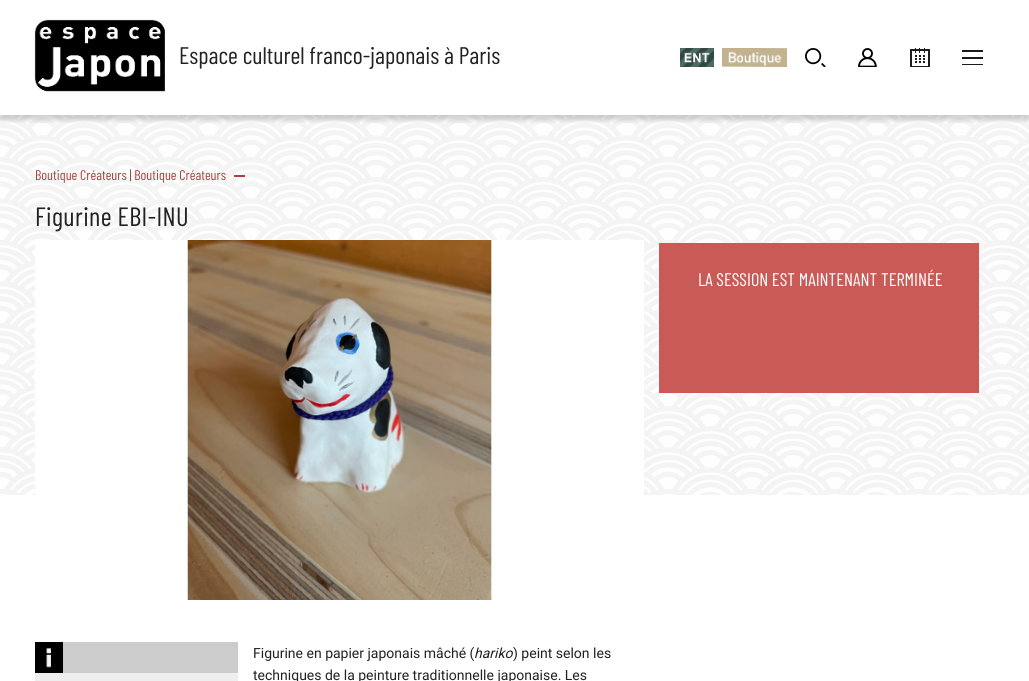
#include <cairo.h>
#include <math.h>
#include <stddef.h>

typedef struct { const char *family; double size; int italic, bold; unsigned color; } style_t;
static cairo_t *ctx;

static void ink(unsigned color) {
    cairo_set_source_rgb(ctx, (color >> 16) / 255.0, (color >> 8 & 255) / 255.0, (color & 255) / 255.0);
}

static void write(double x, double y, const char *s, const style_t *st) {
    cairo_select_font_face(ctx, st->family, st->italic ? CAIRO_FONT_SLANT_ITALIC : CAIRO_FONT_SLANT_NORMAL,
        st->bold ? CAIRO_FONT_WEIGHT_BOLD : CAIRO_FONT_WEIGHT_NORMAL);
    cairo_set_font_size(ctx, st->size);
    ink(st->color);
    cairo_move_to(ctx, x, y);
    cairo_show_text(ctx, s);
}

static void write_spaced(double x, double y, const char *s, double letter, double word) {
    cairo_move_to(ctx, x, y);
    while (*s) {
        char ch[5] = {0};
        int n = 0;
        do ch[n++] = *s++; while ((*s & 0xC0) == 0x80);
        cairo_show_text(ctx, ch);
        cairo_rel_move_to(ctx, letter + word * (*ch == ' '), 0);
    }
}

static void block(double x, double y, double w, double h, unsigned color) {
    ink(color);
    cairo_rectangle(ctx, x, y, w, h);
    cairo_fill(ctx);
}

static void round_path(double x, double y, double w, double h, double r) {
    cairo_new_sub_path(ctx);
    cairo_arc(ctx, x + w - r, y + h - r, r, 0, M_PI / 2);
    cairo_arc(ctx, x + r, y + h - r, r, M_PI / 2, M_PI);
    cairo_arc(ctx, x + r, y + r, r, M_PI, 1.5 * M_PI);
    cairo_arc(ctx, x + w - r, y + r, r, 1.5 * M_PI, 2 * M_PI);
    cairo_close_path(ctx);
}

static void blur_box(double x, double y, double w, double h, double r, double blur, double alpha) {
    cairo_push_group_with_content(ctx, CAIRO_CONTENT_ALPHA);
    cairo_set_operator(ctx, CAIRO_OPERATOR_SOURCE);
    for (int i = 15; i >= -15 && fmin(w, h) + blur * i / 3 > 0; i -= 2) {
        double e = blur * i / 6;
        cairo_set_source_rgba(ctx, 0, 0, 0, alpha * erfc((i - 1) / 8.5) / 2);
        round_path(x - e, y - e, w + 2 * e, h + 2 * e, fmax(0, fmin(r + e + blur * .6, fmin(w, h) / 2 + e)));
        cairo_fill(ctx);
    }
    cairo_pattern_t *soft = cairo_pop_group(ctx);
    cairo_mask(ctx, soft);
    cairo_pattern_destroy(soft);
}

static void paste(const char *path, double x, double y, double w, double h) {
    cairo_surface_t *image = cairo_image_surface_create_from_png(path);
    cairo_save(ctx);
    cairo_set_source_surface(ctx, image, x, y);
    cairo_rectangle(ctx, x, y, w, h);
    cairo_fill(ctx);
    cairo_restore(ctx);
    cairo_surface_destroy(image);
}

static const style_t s1 = {"Barlow Condensed", 24, 0, 0, 0x222222};
static const style_t s2 = {"Barlow Condensed", 14, 0, 0, 0xaa4141};
static const style_t s3 = {"Roboto", 14, 0, 0, 0x222222};
static const style_t s4 = {"Roboto", 14, 1, 0, 0x222222};
static const style_t s5 = {"Barlow Condensed", 18.25, 0, 0, 0xffffff};

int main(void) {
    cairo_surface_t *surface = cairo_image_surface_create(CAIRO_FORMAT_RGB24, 1029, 681);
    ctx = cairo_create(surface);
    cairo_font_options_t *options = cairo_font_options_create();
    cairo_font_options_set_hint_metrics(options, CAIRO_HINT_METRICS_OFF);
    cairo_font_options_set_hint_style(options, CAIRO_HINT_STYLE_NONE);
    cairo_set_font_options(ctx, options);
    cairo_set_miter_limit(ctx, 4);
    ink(0xffffff);
    cairo_paint(ctx);
    paste("pic7.png", 0, 115, 1029, 380);
    cairo_save(ctx);
    cairo_rectangle(ctx, 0, 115, 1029, 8);
    cairo_clip(ctx);
    ink(0x000000);
    blur_box(0, 5, 1029, 115, 0, 2.5, 0.18);
    cairo_restore(ctx);
    paste("pic1.png", 34, 19, 131, 73);
    write(179, 64, "Espace culturel franco-japonais à Paris", &s1);
    paste("pic2.png", 680, 48, 34, 19);
    paste("pic3.png", 722, 48, 65, 19);
    paste("pic4.png", 805, 48, 21, 19);
    paste("pic5.png", 858, 48, 19, 19);
    paste("pic6.png", 910, 48, 20, 19);
    block(962, 50, 21, 2, 0x1a1a1a);
    block(962, 57, 21, 2, 0x1a1a1a);
    block(962, 64, 21, 1, 0x1a1a1a);
    write(35, 180, "Boutique Créateurs | Boutique Créateurs", &s2);
    block(234, 175, 11, 2, 0xaa4141);
    cairo_set_font_size(ctx, 26.5);
    ink(0x222222);
    write_spaced(35, 226, "Figurine EBI-INU", 0.4, 0);
    paste("pic8.png", 35, 240, 609, 360);
    block(35, 673, 203, 8, 0xeeeeee);
    block(50, 642, 188, 31, 0xcccccc);
    paste("pic9.png", 35, 642, 28, 31);
    write(253, 658, "Figurine en papier japonais mâché (", &s3);
    write(474, 658, "hariko", &s4);
    write(513, 658, ") peint selon les", &s3);
    write(253, 680, "techniques de la peinture traditionnelle japonaise. Les", &s3);
    block(659, 243, 320, 150, 0xc95a56);
    write(698, 286, "LA SESSION EST MAINTENANT TERMINÉE", &s5);
    cairo_surface_write_to_png(surface, "screenshot.png");
    cairo_font_options_destroy(options);
    cairo_destroy(ctx);
    cairo_surface_destroy(surface);
    return 0;
}
